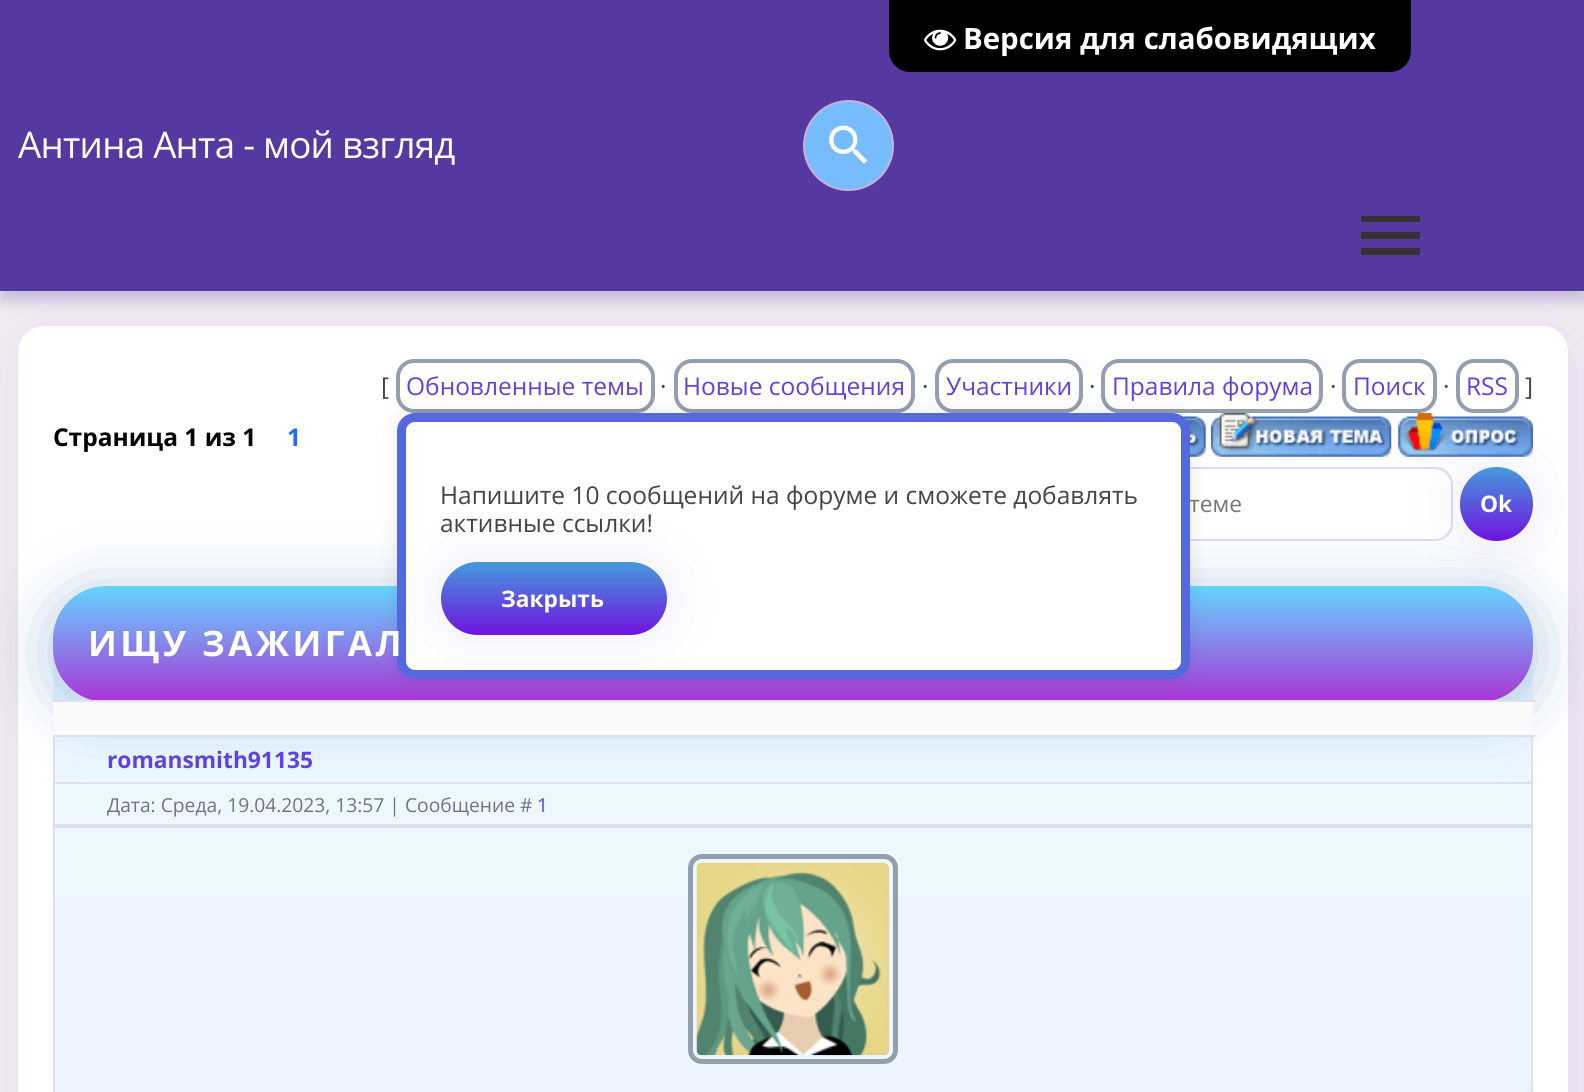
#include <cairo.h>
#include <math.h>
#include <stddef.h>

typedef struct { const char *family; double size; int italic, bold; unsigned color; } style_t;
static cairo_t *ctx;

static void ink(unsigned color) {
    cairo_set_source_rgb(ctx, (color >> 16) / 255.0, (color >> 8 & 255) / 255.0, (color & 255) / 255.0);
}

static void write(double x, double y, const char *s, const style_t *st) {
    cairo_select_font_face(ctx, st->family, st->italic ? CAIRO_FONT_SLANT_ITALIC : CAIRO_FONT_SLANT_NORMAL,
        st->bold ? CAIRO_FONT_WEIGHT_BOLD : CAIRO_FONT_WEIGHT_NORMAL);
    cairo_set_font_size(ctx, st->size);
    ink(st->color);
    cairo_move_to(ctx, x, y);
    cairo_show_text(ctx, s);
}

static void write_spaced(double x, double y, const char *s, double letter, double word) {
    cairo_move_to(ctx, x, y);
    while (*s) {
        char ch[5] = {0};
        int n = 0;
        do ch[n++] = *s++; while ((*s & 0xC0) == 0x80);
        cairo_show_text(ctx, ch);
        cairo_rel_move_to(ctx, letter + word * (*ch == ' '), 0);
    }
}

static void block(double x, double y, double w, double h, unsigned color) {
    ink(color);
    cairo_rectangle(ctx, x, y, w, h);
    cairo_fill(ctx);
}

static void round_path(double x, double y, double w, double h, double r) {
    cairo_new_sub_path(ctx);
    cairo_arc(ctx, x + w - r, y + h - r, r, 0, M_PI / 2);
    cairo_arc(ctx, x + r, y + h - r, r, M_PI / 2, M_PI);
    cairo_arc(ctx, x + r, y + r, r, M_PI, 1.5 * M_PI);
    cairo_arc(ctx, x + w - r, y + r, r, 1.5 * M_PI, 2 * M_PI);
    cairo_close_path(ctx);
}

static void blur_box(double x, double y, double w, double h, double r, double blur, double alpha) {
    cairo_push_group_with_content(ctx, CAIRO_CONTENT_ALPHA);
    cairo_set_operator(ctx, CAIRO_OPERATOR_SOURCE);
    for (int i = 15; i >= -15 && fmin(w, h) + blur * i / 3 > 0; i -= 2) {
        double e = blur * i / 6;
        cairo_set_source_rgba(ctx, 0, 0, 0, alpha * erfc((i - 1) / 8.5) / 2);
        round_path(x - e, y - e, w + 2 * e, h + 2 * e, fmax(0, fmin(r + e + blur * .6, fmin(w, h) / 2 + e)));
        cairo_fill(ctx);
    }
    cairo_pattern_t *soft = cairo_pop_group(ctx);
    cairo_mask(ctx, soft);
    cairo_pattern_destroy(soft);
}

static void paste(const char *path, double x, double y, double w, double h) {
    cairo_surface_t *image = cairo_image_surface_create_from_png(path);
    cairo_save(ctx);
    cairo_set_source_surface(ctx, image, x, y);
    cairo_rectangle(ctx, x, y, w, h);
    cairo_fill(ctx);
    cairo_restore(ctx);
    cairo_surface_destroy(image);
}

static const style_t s1 = {"Open Sans", 29.4, 0, 1, 0xffffff};
static const style_t s2 = {"Open Sans", 24.5, 0, 0, 0x444444};
static const style_t s3 = {"Open Sans", 24.5, 0, 0, 0x6141df};
static const style_t s4 = {"Open Sans", 24.5, 0, 1, 0x000000};
static const style_t s5 = {"Open Sans", 24.5, 0, 1, 0x1d6ef5};
static const style_t s6 = {"Open Sans", 22.75, 0, 0, 0x757575};
static const style_t s7 = {"Open Sans", 22.75, 0, 1, 0xffffff};
static const style_t s8 = {"Open Sans", 22.75, 0, 1, 0x6141df};
static const style_t s9 = {"Open Sans", 19.25, 0, 0, 0x70718e};
static const style_t s10 = {"Open Sans", 19.25, 0, 0, 0x6141df};

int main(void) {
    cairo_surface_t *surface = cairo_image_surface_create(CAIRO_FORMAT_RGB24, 1584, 1092);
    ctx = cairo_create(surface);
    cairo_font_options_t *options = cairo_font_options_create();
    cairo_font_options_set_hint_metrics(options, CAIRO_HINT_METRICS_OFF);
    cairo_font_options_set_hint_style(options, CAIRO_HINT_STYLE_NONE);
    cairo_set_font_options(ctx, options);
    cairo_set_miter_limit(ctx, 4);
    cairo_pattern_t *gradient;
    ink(0xf0f0f0);
    cairo_paint(ctx);
    ink(0x5734a3);
    blur_box(0, 11, 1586, 290, 0, 7, 0.26);
    ink(0xb400ff);
    blur_box(23, 333, 1550, 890, 26, 35, 0.13);
    block(0, 0, 1584, 291, 0x5539a1);
    ink(0x000000);
    cairo_new_path(ctx);
    cairo_move_to(ctx, 889, 0);
    cairo_line_to(ctx, 1411, 0);
    cairo_line_to(ctx, 1411, 51);
    cairo_curve_to(ctx, 1411, 62.5, 1401.5, 72, 1390, 72);
    cairo_line_to(ctx, 910, 72);
    cairo_curve_to(ctx, 898.5, 72, 889, 62.5, 889, 51);
    cairo_close_path(ctx);
    cairo_fill(ctx);
    paste("pic1.png", 924, 29, 32, 22);
    write(963, 49, "Версия для слабовидящих", &s1);
    cairo_select_font_face(ctx, "Open Sans", CAIRO_FONT_SLANT_NORMAL, CAIRO_FONT_WEIGHT_NORMAL);
    cairo_set_font_size(ctx, 36.75);
    write_spaced(18, 158, "Антина Анта - мой взгляд", -0.75, 0);
    ink(0x76bcff);
    cairo_new_path(ctx);
    cairo_arc(ctx, 848.5, 145.5, 44.5, 0, 2 * M_PI);
    cairo_fill_preserve(ctx);
    ink(0xc9b1d6);
    cairo_stroke(ctx);
    paste("pic2.png", 829, 125, 39, 39);
    ink(0x333333);
    cairo_new_path(ctx);
    cairo_move_to(ctx, 1361, 216);
    cairo_line_to(ctx, 1420, 216);
    cairo_line_to(ctx, 1420, 222);
    cairo_line_to(ctx, 1361, 222);
    cairo_close_path(ctx);
    cairo_move_to(ctx, 1361, 239);
    cairo_line_to(ctx, 1361, 232);
    cairo_line_to(ctx, 1420, 232);
    cairo_line_to(ctx, 1420, 239);
    cairo_close_path(ctx);
    cairo_move_to(ctx, 1361, 255);
    cairo_line_to(ctx, 1361, 248);
    cairo_line_to(ctx, 1420, 248);
    cairo_line_to(ctx, 1420, 255);
    cairo_close_path(ctx);
    cairo_fill(ctx);
    ink(0xffffff);
    round_path(18, 326, 1550, 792, 26);
    cairo_fill(ctx);
    write(381, 395, "[", &s2);
    round_path(398, 361, 255, 50, 16);
    ink(0x939fae);
    cairo_set_line_width(ctx, 4);
    cairo_stroke(ctx);
    write(406, 395, "Обновленные темы", &s3);
    write(660, 395, "·", &s2);
    round_path(676, 361, 237, 50, 16);
    ink(0x939fae);
    cairo_stroke(ctx);
    write(683, 395, "Новые сообщения", &s3);
    write(922, 395, "·", &s2);
    round_path(937, 361, 144, 50, 16);
    ink(0x939fae);
    cairo_stroke(ctx);
    write(946, 395, "Участники", &s3);
    write(1089, 395, "·", &s2);
    round_path(1103, 361, 218, 50, 16);
    ink(0x939fae);
    cairo_stroke(ctx);
    write(1112, 395, "Правила форума", &s3);
    write(1330, 395, "·", &s2);
    round_path(1344, 361, 91, 50, 16);
    ink(0x939fae);
    cairo_stroke(ctx);
    write(1353, 395, "Поиск", &s3);
    write(1443, 395, "·", &s2);
    round_path(1458, 361, 59, 50, 16);
    ink(0x939fae);
    cairo_stroke(ctx);
    write(1466, 395, "RSS", &s3);
    write(1525, 395, "]", &s2);
    write(53, 446, "Страница 1 из 1", &s4);
    write(287, 446, "1", &s5);
    paste("pic3.png", 1182, 416, 24, 41);
    paste("pic4.png", 1211, 413, 181, 44);
    paste("pic5.png", 1398, 413, 135, 44);
    gradient = cairo_pattern_create_linear(793, 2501, 793, 586);
    cairo_pattern_add_color_stop_rgba(gradient, 0, 0.957, 0.898, 0.98, 1);
    cairo_pattern_add_color_stop_rgba(gradient, 1, 0.922, 0.98, 1, 1);
    cairo_set_source(ctx, gradient);
    cairo_pattern_destroy(gradient);
    cairo_new_path(ctx);
    cairo_move_to(ctx, 106, 586);
    cairo_line_to(ctx, 1480, 586);
    cairo_curve_to(ctx, 1509.5, 586, 1533, 609.5, 1533, 639);
    cairo_line_to(ctx, 1533, 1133);
    cairo_curve_to(ctx, 1533, 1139.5, 1527.5, 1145, 1521, 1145);
    cairo_line_to(ctx, 65, 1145);
    cairo_curve_to(ctx, 58.5, 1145, 53, 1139.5, 53, 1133);
    cairo_line_to(ctx, 53, 639);
    cairo_curve_to(ctx, 53, 609.5, 76.5, 586, 106, 586);
    cairo_close_path(ctx);
    cairo_fill(ctx);
    ink(0x1050a6);
    blur_box(53, 595, 1480, 116, 53, 33, 0.31);
    ink(0xffffff);
    round_path(1063, 468, 389, 72, 17);
    cairo_fill_preserve(ctx);
    ink(0xd8dafe);
    cairo_set_line_width(ctx, 2);
    cairo_stroke(ctx);
    ink(0xffffff);
    round_path(53, 586, 1480, 116, 53);
    cairo_fill(ctx);
    gradient = cairo_pattern_create_linear(793, 702, 793, 586);
    cairo_pattern_add_color_stop_rgba(gradient, 0, 0.592, 0.031, 0.8, 0.82);
    cairo_pattern_add_color_stop_rgba(gradient, 1, 0.263, 0.796, 1, 0.82);
    cairo_set_source(ctx, gradient);
    cairo_pattern_destroy(gradient);
    round_path(53, 586, 1480, 116, 53);
    cairo_fill(ctx);
    block(53, 702, 1480, 33, 0xfafafa);
    block(53, 700, 1482, 2, 0xdfdfed);
    ink(0x000000);
    blur_box(397, 413, 793, 266, 18, 9, 0.1);
    write(1189, 512, "теме", &s6);
    ink(0xffffff);
    round_path(401.5, 417.5, 784, 257, 13.5);
    cairo_fill_preserve(ctx);
    ink(0x5568dd);
    cairo_set_line_width(ctx, 9);
    cairo_stroke(ctx);
    write(440, 504, "Напишите 10 сообщений на форуме и сможете добавлять", &s2);
    write(440, 532, "активные ссылки!", &s2);
    ink(0x5d4bdd);
    blur_box(438, 558, 232, 81, 40.5, 24.5, 0.1);
    gradient = cairo_pattern_create_linear(553, 635, 553, 562);
    cairo_pattern_add_color_stop_rgba(gradient, 0, 0.435, 0.071, 0.878, 1);
    cairo_pattern_add_color_stop_rgba(gradient, 0.63, 0.333, 0.408, 0.867, 1);
    cairo_pattern_add_color_stop_rgba(gradient, 1, 0.271, 0.608, 0.859, 1);
    cairo_set_source(ctx, gradient);
    cairo_pattern_destroy(gradient);
    round_path(441, 562, 226, 73, 36.5);
    cairo_fill(ctx);
    write(501, 607, "Закрыть", &s7);
    ink(0x5d4bdd);
    blur_box(1456, 464, 81, 80, 40, 24.5, 0.1);
    gradient = cairo_pattern_create_linear(1496, 541, 1496, 467);
    cairo_pattern_add_color_stop_rgba(gradient, 0, 0.435, 0.071, 0.878, 1);
    cairo_pattern_add_color_stop_rgba(gradient, 0.63, 0.333, 0.408, 0.867, 1);
    cairo_pattern_add_color_stop_rgba(gradient, 1, 0.271, 0.608, 0.859, 1);
    cairo_set_source(ctx, gradient);
    cairo_pattern_destroy(gradient);
    round_path(1460, 467, 73, 74, 36.5);
    cairo_fill(ctx);
    write(1480, 512, "Ok", &s7);
    cairo_set_font_size(ctx, 35);
    write_spaced(88, 656, "ИЩУ ЗАЖИГАЛ", 3.5, 0);
    block(53, 735, 1482, 2, 0xdfdfed);
    block(1531, 737, 2, 91, 0xdfdfed);
    block(53, 782, 1480, 2, 0xdfdfed);
    block(53, 737, 2, 47, 0xdfdfed);
    write(107, 768, "romansmith91135", &s8);
    block(53, 824, 1480, 4, 0xdfdfed);
    block(53, 784, 2, 44, 0xdfdfed);
    write(107, 812, "Дата: Среда, 19.04.2023, 13:57 | Сообщение #", &s9);
    write(537, 812, "1", &s10);
    block(1531, 828, 2, 264, 0xdfdfed);
    block(53, 828, 2, 264, 0xdfdfed);
    round_path(690.5, 856.5, 205, 205, 11.5);
    ink(0x939fae);
    cairo_set_line_width(ctx, 5);
    cairo_stroke(ctx);
    paste("pic6.png", 696, 862, 193, 194);
    cairo_surface_write_to_png(surface, "screenshot.png");
    cairo_font_options_destroy(options);
    cairo_destroy(ctx);
    cairo_surface_destroy(surface);
    return 0;
}
